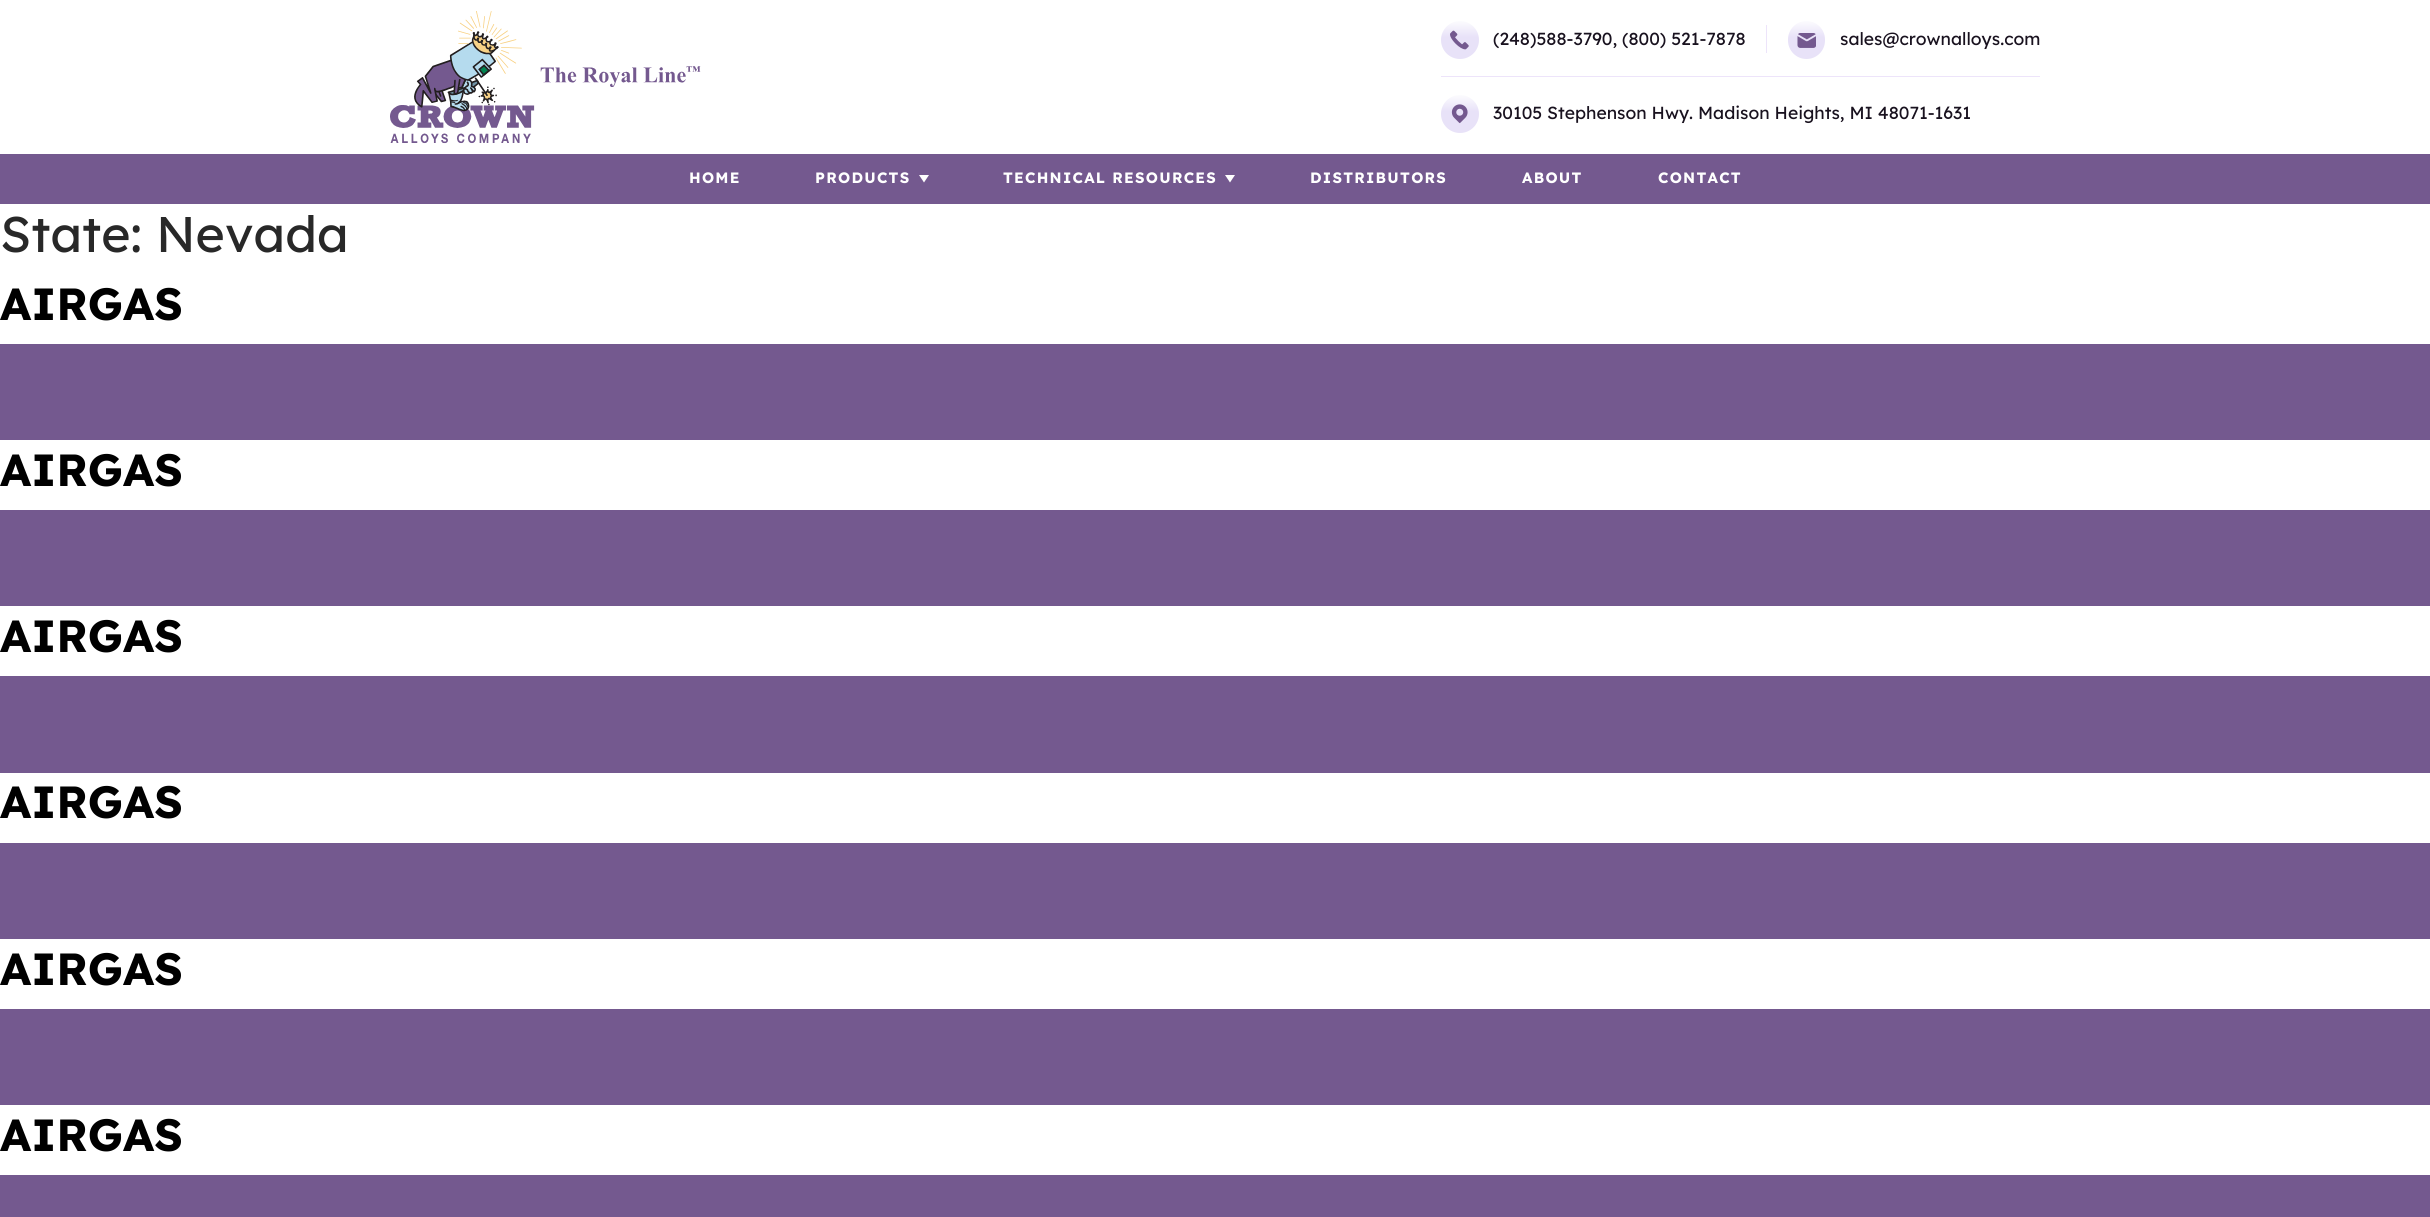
#include <cairo.h>
#include <math.h>
#include <stddef.h>

typedef struct { const char *family; double size; int italic, bold; unsigned color; } style_t;
static cairo_t *ctx;

static void ink(unsigned color) {
    cairo_set_source_rgb(ctx, (color >> 16) / 255.0, (color >> 8 & 255) / 255.0, (color & 255) / 255.0);
}

static void write(double x, double y, const char *s, const style_t *st) {
    cairo_select_font_face(ctx, st->family, st->italic ? CAIRO_FONT_SLANT_ITALIC : CAIRO_FONT_SLANT_NORMAL,
        st->bold ? CAIRO_FONT_WEIGHT_BOLD : CAIRO_FONT_WEIGHT_NORMAL);
    cairo_set_font_size(ctx, st->size);
    ink(st->color);
    cairo_move_to(ctx, x, y);
    cairo_show_text(ctx, s);
}

static void write_spaced(double x, double y, const char *s, double letter, double word) {
    cairo_move_to(ctx, x, y);
    while (*s) {
        char ch[5] = {0};
        int n = 0;
        do ch[n++] = *s++; while ((*s & 0xC0) == 0x80);
        cairo_show_text(ctx, ch);
        cairo_rel_move_to(ctx, letter + word * (*ch == ' '), 0);
    }
}

static void block(double x, double y, double w, double h, unsigned color) {
    ink(color);
    cairo_rectangle(ctx, x, y, w, h);
    cairo_fill(ctx);
}

static void round_path(double x, double y, double w, double h, double r) {
    cairo_new_sub_path(ctx);
    cairo_arc(ctx, x + w - r, y + h - r, r, 0, M_PI / 2);
    cairo_arc(ctx, x + r, y + h - r, r, M_PI / 2, M_PI);
    cairo_arc(ctx, x + r, y + r, r, M_PI, 1.5 * M_PI);
    cairo_arc(ctx, x + w - r, y + r, r, 1.5 * M_PI, 2 * M_PI);
    cairo_close_path(ctx);
}

static void paste(const char *path, double x, double y, double w, double h) {
    cairo_surface_t *image = cairo_image_surface_create_from_png(path);
    cairo_save(ctx);
    cairo_set_source_surface(ctx, image, x, y);
    cairo_rectangle(ctx, x, y, w, h);
    cairo_fill(ctx);
    cairo_restore(ctx);
    cairo_surface_destroy(image);
}

static const style_t s1 = {"Lexend", 17.5, 0, 0, 0x19121f};
static const style_t s2 = {"Lexend", 50, 0, 0, 0x282828};
static const style_t s3 = {"Lexend", 45, 0, 1, 0x000000};

int main(void) {
    cairo_surface_t *surface = cairo_image_surface_create(CAIRO_FORMAT_RGB24, 2430, 1217);
    ctx = cairo_create(surface);
    cairo_font_options_t *options = cairo_font_options_create();
    cairo_font_options_set_hint_metrics(options, CAIRO_HINT_METRICS_OFF);
    cairo_font_options_set_hint_style(options, CAIRO_HINT_STYLE_NONE);
    cairo_set_font_options(ctx, options);
    cairo_set_miter_limit(ctx, 4);
    cairo_pattern_t *gradient;
    ink(0xffffff);
    cairo_paint(ctx);
    paste("pic1.png", 390, 11, 311, 133);
    block(1441, 76, 599, 1, 0xede4fa);
    gradient = cairo_pattern_create_linear(1460, 21, 1460, 59);
    cairo_pattern_add_color_stop_rgba(gradient, 0, 0.988, 0.988, 0.996, 1);
    cairo_pattern_add_color_stop_rgba(gradient, 0.42, 0.91, 0.886, 0.973, 1);
    cairo_set_source(ctx, gradient);
    cairo_pattern_destroy(gradient);
    cairo_arc(ctx, 1460, 40, 19, 0, 2 * M_PI);
    cairo_fill(ctx);
    paste("pic2.png", 1450, 30, 19, 20);
    write(1493, 45, "(248)588-3790, (800) 521-7878", &s1);
    block(1766, 25, 1, 28, 0xede4fa);
    gradient = cairo_pattern_create_linear(1806, 21, 1806, 59);
    cairo_pattern_add_color_stop_rgba(gradient, 0, 0.988, 0.988, 0.996, 1);
    cairo_pattern_add_color_stop_rgba(gradient, 0.42, 0.91, 0.886, 0.973, 1);
    cairo_set_source(ctx, gradient);
    cairo_pattern_destroy(gradient);
    round_path(1788, 21, 37, 38, 18.5);
    cairo_fill(ctx);
    paste("pic3.png", 1797, 33, 19, 15);
    write(1840, 45, "sales@crownalloys.com", &s1);
    gradient = cairo_pattern_create_linear(1460, 95, 1460, 133);
    cairo_pattern_add_color_stop_rgba(gradient, 0, 0.988, 0.988, 0.996, 1);
    cairo_pattern_add_color_stop_rgba(gradient, 0.42, 0.91, 0.886, 0.973, 1);
    cairo_set_source(ctx, gradient);
    cairo_pattern_destroy(gradient);
    cairo_new_path(ctx);
    cairo_arc(ctx, 1460, 114, 19, 0, 2 * M_PI);
    cairo_fill(ctx);
    paste("pic4.png", 1451, 104, 17, 20);
    write(1493, 119, "30105 Stephenson Hwy. Madison Heights, MI 48071-1631", &s1);
    block(0, 154, 2430, 50, 0x74598f);
    cairo_select_font_face(ctx, "Lexend", CAIRO_FONT_SLANT_NORMAL, CAIRO_FONT_WEIGHT_BOLD);
    cairo_set_font_size(ctx, 15);
    ink(0xffffff);
    write_spaced(689, 183, "HOME", 1.25, 0);
    write_spaced(815, 183, "PRODUCTS", 1.25, 0);
    cairo_new_path(ctx);
    cairo_move_to(ctx, 919, 175);
    cairo_line_to(ctx, 929, 175);
    cairo_line_to(ctx, 924, 182.5);
    cairo_close_path(ctx);
    cairo_fill(ctx);
    write_spaced(1003, 183, "TECHNICAL RESOURCES", 1.25, 0);
    cairo_new_path(ctx);
    cairo_move_to(ctx, 1225, 175);
    cairo_line_to(ctx, 1235, 175);
    cairo_line_to(ctx, 1230, 182.5);
    cairo_close_path(ctx);
    cairo_fill(ctx);
    write_spaced(1310, 183, "DISTRIBUTORS", 1.25, 0);
    write_spaced(1522, 183, "ABOUT", 1.25, 0);
    write_spaced(1658, 183, "CONTACT", 1.25, 0);
    write(0, 252, "State: Nevada", &s2);
    write(0, 320, "AIRGAS", &s3);
    block(0, 344, 2430, 96, 0x74598f);
    write(0, 486, "AIRGAS", &s3);
    block(0, 510, 2430, 96, 0x74598f);
    write(0, 652, "AIRGAS", &s3);
    block(0, 676, 2430, 97, 0x74598f);
    write(0, 818, "AIRGAS", &s3);
    block(0, 843, 2430, 96, 0x74598f);
    write(0, 985, "AIRGAS", &s3);
    block(0, 1009, 2430, 96, 0x74598f);
    write(0, 1151, "AIRGAS", &s3);
    block(0, 1175, 2430, 42, 0x74598f);
    cairo_surface_write_to_png(surface, "screenshot.png");
    cairo_font_options_destroy(options);
    cairo_destroy(ctx);
    cairo_surface_destroy(surface);
    return 0;
}
